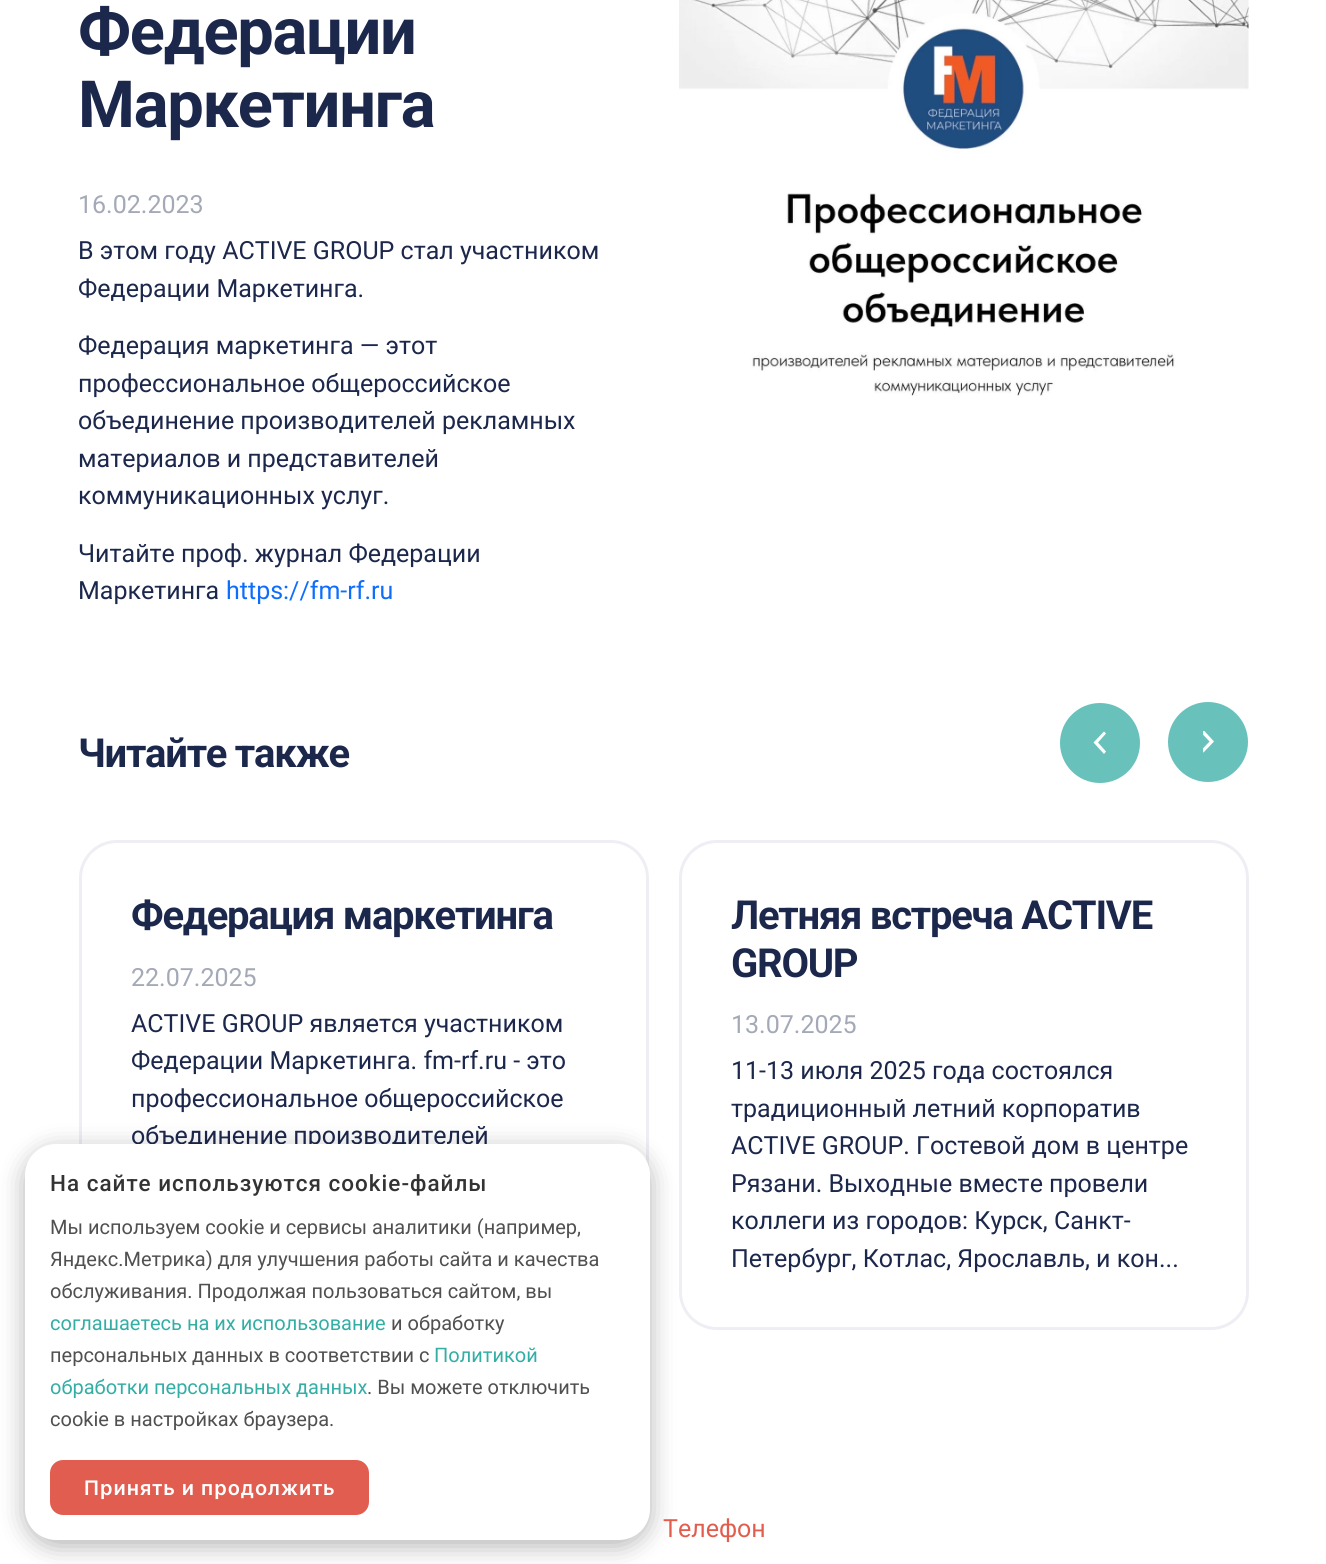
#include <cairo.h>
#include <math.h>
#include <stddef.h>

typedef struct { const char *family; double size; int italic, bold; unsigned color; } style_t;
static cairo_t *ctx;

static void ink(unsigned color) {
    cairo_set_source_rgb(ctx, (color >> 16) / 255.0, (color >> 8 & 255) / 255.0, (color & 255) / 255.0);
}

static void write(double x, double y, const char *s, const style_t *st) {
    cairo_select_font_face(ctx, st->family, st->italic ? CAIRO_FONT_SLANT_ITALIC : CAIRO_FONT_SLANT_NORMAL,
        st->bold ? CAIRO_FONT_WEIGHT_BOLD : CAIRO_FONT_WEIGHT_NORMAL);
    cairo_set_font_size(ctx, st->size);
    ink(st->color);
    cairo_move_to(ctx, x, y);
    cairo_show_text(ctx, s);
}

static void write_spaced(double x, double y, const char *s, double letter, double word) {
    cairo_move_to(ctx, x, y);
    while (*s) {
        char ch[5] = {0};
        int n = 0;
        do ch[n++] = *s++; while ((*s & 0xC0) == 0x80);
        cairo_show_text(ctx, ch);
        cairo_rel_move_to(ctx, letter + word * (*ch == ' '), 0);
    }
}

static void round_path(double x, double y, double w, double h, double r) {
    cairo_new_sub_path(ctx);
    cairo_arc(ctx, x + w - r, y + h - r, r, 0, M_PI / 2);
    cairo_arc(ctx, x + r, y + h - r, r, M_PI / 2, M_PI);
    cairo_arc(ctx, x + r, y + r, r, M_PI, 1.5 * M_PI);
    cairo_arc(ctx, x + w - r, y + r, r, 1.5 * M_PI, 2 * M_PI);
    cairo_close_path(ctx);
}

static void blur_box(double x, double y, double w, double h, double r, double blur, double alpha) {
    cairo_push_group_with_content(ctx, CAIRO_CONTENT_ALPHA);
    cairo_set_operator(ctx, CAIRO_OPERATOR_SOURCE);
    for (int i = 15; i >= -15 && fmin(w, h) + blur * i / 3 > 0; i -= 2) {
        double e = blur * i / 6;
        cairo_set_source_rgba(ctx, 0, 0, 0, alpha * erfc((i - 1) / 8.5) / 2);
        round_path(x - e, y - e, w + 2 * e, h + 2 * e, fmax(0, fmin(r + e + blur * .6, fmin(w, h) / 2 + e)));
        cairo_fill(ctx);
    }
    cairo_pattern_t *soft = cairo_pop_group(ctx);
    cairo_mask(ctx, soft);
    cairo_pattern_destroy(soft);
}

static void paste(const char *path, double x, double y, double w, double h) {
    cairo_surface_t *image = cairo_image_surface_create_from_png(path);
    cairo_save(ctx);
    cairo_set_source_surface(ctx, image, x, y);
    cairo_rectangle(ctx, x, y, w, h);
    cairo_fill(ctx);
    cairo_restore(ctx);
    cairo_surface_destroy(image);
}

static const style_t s1 = {"Roboto", 25, 0, 0, 0xa4a9b7};
static const style_t s2 = {"Roboto", 25, 0, 0, 0x1c274c};
static const style_t s3 = {"Roboto", 25, 0, 0, 0x0d6efd};
static const style_t s4 = {"Roboto", 20, 0, 0, 0x505050};
static const style_t s5 = {"Roboto", 20, 0, 0, 0x33aea5};
static const style_t s6 = {"Roboto", 25, 0, 0, 0xe15e4f};

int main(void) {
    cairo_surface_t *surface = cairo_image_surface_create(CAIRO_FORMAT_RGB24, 1326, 1564);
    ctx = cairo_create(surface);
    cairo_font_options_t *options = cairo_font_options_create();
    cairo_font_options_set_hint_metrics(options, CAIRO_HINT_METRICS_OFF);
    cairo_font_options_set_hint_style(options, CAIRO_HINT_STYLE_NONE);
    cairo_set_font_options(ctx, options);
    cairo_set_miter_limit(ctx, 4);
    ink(0xffffff);
    cairo_paint(ctx);
    cairo_select_font_face(ctx, "Roboto", CAIRO_FONT_SLANT_NORMAL, CAIRO_FONT_WEIGHT_BOLD);
    cairo_set_font_size(ctx, 65);
    ink(0x1c274c);
    write_spaced(78, 54, "Федерации", -1.25, 0);
    write_spaced(78, 127, "Маркетинга", -1.25, 0);
    write(78, 213, "16.02.2023", &s1);
    write(78, 259, "В этом году ACTIVE GROUP стал участником", &s2);
    write(78, 297, "Федерации Маркетинга.", &s2);
    write(78, 354, "Федерация маркетинга — этот", &s2);
    write(78, 392, "профессиональное общероссийское", &s2);
    write(78, 429, "объединение производителей рекламных", &s2);
    write(78, 467, "материалов и представителей", &s2);
    write(78, 504, "коммуникационных услуг.", &s2);
    write(78, 562, "Читайте проф. журнал Федерации", &s2);
    write(78, 599, "Маркетинга", &s2);
    write(226, 599, "https://fm-rf.ru", &s3);
    paste("pic1.png", 679, 0, 570, 396);
    cairo_select_font_face(ctx, "Roboto", CAIRO_FONT_SLANT_NORMAL, CAIRO_FONT_WEIGHT_BOLD);
    cairo_set_font_size(ctx, 40);
    ink(0x1c274c);
    write_spaced(78, 767, "Читайте также", -1.25, 0);
    ink(0x69c1bb);
    cairo_new_path(ctx);
    cairo_arc(ctx, 1100, 743, 40, 0, 2 * M_PI);
    cairo_fill(ctx);
    ink(0xffffff);
    cairo_set_fill_rule(ctx, CAIRO_FILL_RULE_EVEN_ODD);
    cairo_new_path(ctx);
    cairo_move_to(ctx, 1106, 733.5);
    cairo_line_to(ctx, 1098, 742.5);
    cairo_line_to(ctx, 1106, 751.5);
    cairo_line_to(ctx, 1104, 754);
    cairo_line_to(ctx, 1093.5, 742.5);
    cairo_line_to(ctx, 1104, 731.5);
    cairo_close_path(ctx);
    cairo_fill(ctx);
    ink(0x69c1bb);
    cairo_set_fill_rule(ctx, CAIRO_FILL_RULE_WINDING);
    cairo_new_path(ctx);
    cairo_move_to(ctx, 1208, 782);
    cairo_curve_to(ctx, 1186, 782, 1168, 764, 1168, 742);
    cairo_curve_to(ctx, 1168, 720, 1186, 702, 1208, 702);
    cairo_curve_to(ctx, 1230, 702, 1248, 720, 1248, 742);
    cairo_curve_to(ctx, 1248, 764, 1230, 782, 1208, 782);
    cairo_close_path(ctx);
    cairo_fill(ctx);
    cairo_save(ctx);
    cairo_rectangle(ctx, 1203, 731, 12, 23);
    cairo_clip(ctx);
    ink(0xffffff);
    cairo_set_fill_rule(ctx, CAIRO_FILL_RULE_EVEN_ODD);
    cairo_new_path(ctx);
    cairo_move_to(ctx, 1201, 750.5);
    cairo_line_to(ctx, 1209.5, 741.5);
    cairo_line_to(ctx, 1201, 732.5);
    cairo_line_to(ctx, 1203.5, 730);
    cairo_line_to(ctx, 1214, 741.5);
    cairo_line_to(ctx, 1203.5, 752.5);
    cairo_close_path(ctx);
    cairo_fill(ctx);
    cairo_restore(ctx);
    round_path(80.5, 841.5, 567, 477, 36.5);
    ink(0xeeeef4);
    cairo_set_line_width(ctx, 3);
    cairo_stroke(ctx);
    ink(0x1c274c);
    write_spaced(131, 929, "Федерация маркетинга", -1.25, 0);
    write(131, 986, "22.07.2025", &s1);
    write(131, 1032, "ACTIVE GROUP является участником", &s2);
    write(131, 1069, "Федерации Маркетинга. fm-rf.ru - это", &s2);
    write(131, 1107, "профессиональное общероссийское", &s2);
    write(131, 1144, "объединение производителей", &s2);
    round_path(680.5, 841.5, 567, 487, 36.5);
    ink(0xeeeef4);
    cairo_stroke(ctx);
    cairo_select_font_face(ctx, "Roboto", CAIRO_FONT_SLANT_NORMAL, CAIRO_FONT_WEIGHT_BOLD);
    cairo_set_font_size(ctx, 40);
    ink(0x1c274c);
    write_spaced(731, 929, "Летняя встреча ACTIVE", -1.25, 0);
    write_spaced(731, 977, "GROUP", -1.25, 0);
    write(731, 1033, "13.07.2025", &s1);
    write(731, 1079, "11-13 июля 2025 года состоялся", &s2);
    write(731, 1117, "традиционный летний корпоратив", &s2);
    write(731, 1154, "ACTIVE GROUP. Гостевой дом в центре", &s2);
    write(731, 1192, "Рязани. Выходные вместе провели", &s2);
    write(731, 1229, "коллеги из городов: Курск, Санкт-", &s2);
    write(731, 1267, "Петербург, Котлас, Ярославль, и кон...", &s2);
    ink(0x000000);
    blur_box(25, 1150, 625, 396, 31, 12.5, 0.3);
    ink(0xffffff);
    round_path(25, 1144, 625, 396, 31);
    cairo_fill(ctx);
    cairo_select_font_face(ctx, "Roboto Medium", CAIRO_FONT_SLANT_NORMAL, CAIRO_FONT_WEIGHT_NORMAL);
    cairo_set_font_size(ctx, 22.5);
    ink(0x333333);
    write_spaced(50, 1191, "На сайте используются cookie-файлы", 1, 0);
    write(50, 1234, "Мы используем cookie и сервисы аналитики (например,", &s4);
    write(50, 1266, "Яндекс.Метрика) для улучшения работы сайта и качества", &s4);
    write(50, 1298, "обслуживания. Продолжая пользоваться сайтом, вы", &s4);
    write(50, 1330, "соглашаетесь на их использование", &s5);
    write(391, 1330, "и обработку", &s4);
    write(50, 1362, "персональных данных в соответствии с", &s4);
    write(434, 1362, "Политикой", &s5);
    write(50, 1394, "обработки персональных данных", &s5);
    write(367, 1394, ". Вы можете отключить", &s4);
    write(50, 1426, "cookie в настройках браузера.", &s4);
    ink(0xe15d50);
    round_path(50, 1460, 319, 55, 13);
    cairo_fill(ctx);
    cairo_select_font_face(ctx, "Inter SemiBold", CAIRO_FONT_SLANT_NORMAL, CAIRO_FONT_WEIGHT_NORMAL);
    ink(0xffffff);
    write_spaced(84, 1495, "Принять и продолжить", 1, 0);
    write(663, 1537, "Телефон", &s6);
    cairo_surface_write_to_png(surface, "screenshot.png");
    cairo_font_options_destroy(options);
    cairo_destroy(ctx);
    cairo_surface_destroy(surface);
    return 0;
}
